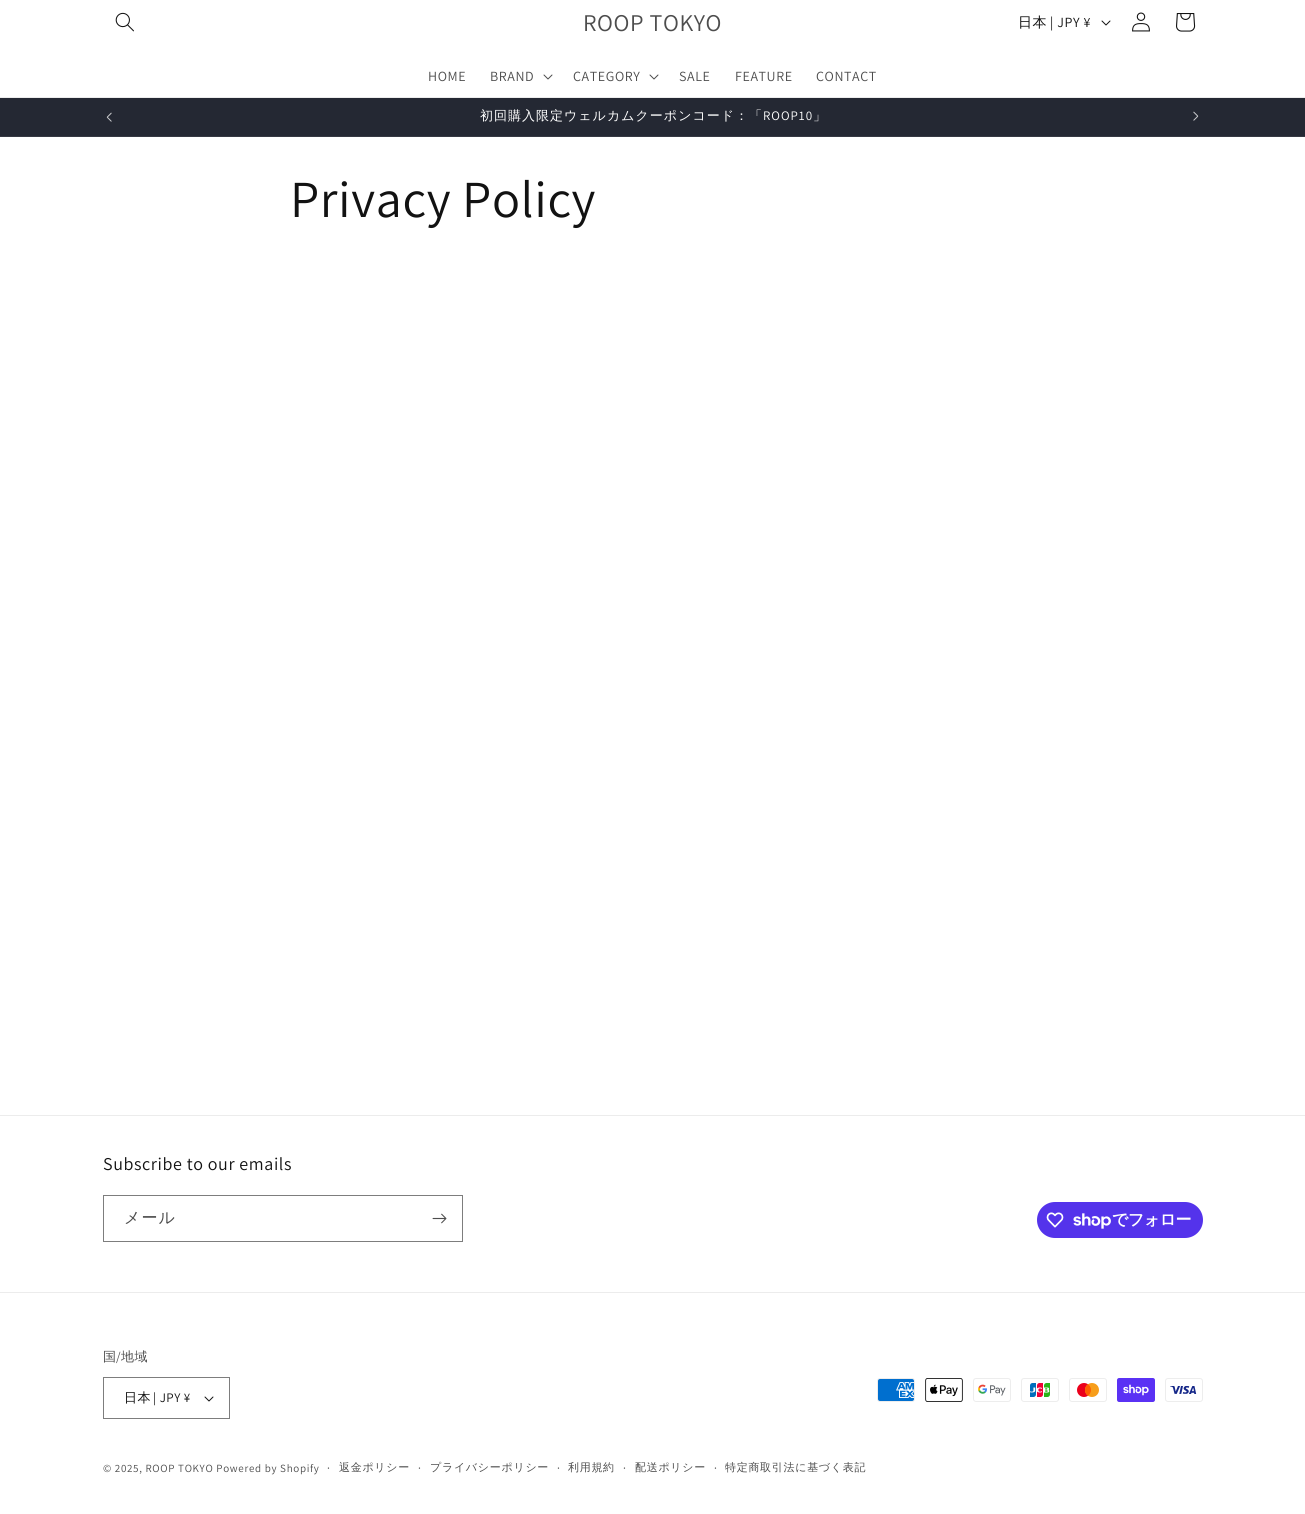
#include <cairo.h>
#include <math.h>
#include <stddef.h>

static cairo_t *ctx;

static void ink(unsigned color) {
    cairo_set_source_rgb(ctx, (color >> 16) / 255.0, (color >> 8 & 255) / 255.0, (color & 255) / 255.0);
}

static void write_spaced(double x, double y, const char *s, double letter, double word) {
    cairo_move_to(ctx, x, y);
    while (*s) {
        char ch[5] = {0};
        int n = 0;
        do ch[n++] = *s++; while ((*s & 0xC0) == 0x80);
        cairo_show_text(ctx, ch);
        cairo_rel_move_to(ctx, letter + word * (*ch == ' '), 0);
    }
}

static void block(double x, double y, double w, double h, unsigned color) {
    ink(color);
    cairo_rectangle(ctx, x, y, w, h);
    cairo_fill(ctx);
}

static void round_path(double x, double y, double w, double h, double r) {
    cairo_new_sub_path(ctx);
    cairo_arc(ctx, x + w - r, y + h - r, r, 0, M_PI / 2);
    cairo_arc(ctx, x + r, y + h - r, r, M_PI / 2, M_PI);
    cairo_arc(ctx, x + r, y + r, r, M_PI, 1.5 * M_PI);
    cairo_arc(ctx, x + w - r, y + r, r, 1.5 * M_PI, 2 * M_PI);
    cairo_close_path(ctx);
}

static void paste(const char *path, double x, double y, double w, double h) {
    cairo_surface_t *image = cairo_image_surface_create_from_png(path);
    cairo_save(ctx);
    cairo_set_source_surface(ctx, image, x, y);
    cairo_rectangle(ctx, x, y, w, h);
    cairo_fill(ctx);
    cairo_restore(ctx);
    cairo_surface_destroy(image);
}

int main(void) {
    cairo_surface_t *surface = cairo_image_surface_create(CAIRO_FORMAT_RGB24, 1305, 1514);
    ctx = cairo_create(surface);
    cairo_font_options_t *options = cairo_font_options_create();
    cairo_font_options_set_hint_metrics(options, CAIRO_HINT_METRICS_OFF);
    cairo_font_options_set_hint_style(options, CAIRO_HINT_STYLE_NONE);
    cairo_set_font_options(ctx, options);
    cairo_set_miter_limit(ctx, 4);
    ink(0xffffff);
    cairo_paint(ctx);
    block(0, 97, 1305, 1, 0xececec);
    paste("pic1.png", 115, 12, 19, 20);
    cairo_select_font_face(ctx, "Assistant", CAIRO_FONT_SLANT_NORMAL, CAIRO_FONT_WEIGHT_NORMAL);
    cairo_set_font_size(ctx, 24);
    ink(0x4d4d4d);
    write_spaced(583, 31, "ROOP TOKYO", 0.6, 0);
    cairo_select_font_face(ctx, "WenQuanYi Zen Hei Medium", CAIRO_FONT_SLANT_NORMAL, CAIRO_FONT_WEIGHT_NORMAL);
    cairo_set_font_size(ctx, 14);
    ink(0x121212);
    write_spaced(1018, 27, "日本", 0.6, 0);
    cairo_select_font_face(ctx, "Assistant", CAIRO_FONT_SLANT_NORMAL, CAIRO_FONT_WEIGHT_NORMAL);
    write_spaced(1050, 27, "| JPY ¥", 0.6, 0);
    paste("pic2.png", 1101, 20, 10, 6);
    paste("pic3.png", 1132, 12, 18, 20);
    paste("pic4.png", 1176, 13, 20, 19);
    ink(0x4d4d4d);
    write_spaced(428, 81, "HOME", 0.6, 0);
    write_spaced(490, 81, "BRAND", 0.6, 0);
    paste("pic5.png", 543, 74, 10, 6);
    write_spaced(573, 81, "CATEGORY", 0.6, 0);
    paste("pic5.png", 649, 74, 10, 6);
    write_spaced(679, 81, "SALE", 0.6, 0);
    write_spaced(735, 81, "FEATURE", 0.6, 0);
    write_spaced(816, 81, "CONTACT", 0.6, 0);
    block(0, 98, 1305, 38, 0x242833);
    block(0, 136, 1305, 1, 0x363943);
    paste("pic6.png", 106, 112, 6, 10);
    cairo_select_font_face(ctx, "WenQuanYi Zen Hei Medium", CAIRO_FONT_SLANT_NORMAL, CAIRO_FONT_WEIGHT_NORMAL);
    cairo_set_font_size(ctx, 13);
    ink(0xffffff);
    write_spaced(480, 120, "初回購入限定ウェルカムクーポンコード：「", 1, 0);
    cairo_select_font_face(ctx, "Assistant", CAIRO_FONT_SLANT_NORMAL, CAIRO_FONT_WEIGHT_NORMAL);
    write_spaced(763, 120, "ROOP10", 1, 0);
    cairo_select_font_face(ctx, "WenQuanYi Zen Hei Medium", CAIRO_FONT_SLANT_NORMAL, CAIRO_FONT_WEIGHT_NORMAL);
    write_spaced(813, 120, "」", 1, 0);
    paste("pic7.png", 1193, 111, 6, 10);
    cairo_select_font_face(ctx, "Assistant", CAIRO_FONT_SLANT_NORMAL, CAIRO_FONT_WEIGHT_NORMAL);
    cairo_set_font_size(ctx, 52);
    ink(0x121212);
    write_spaced(290, 217, "Privacy Policy", 0.6, 0);
    block(0, 1115, 1305, 1, 0xececec);
    cairo_set_font_size(ctx, 18);
    ink(0x121212);
    write_spaced(103, 1170, "Subscribe to our emails", 0.6, 0);
    cairo_rectangle(ctx, 103.5, 1195.5, 359, 46);
    ink(0x7d7d7d);
    cairo_set_line_width(ctx, 1);
    cairo_stroke(ctx);
    cairo_select_font_face(ctx, "WenQuanYi Zen Hei Medium", CAIRO_FONT_SLANT_NORMAL, CAIRO_FONT_WEIGHT_NORMAL);
    cairo_set_font_size(ctx, 16);
    ink(0x4d4d4d);
    write_spaced(124, 1223, "メール", 1, 0);
    paste("pic8.png", 432, 1213, 15, 11);
    ink(0x5433eb);
    round_path(1037, 1202, 166, 36, 18);
    cairo_fill(ctx);
    paste("pic9.png", 1046, 1212, 18, 16);
    paste("pic10.png", 1073, 1213, 38, 16);
    cairo_select_font_face(ctx, "WenQuanYi Zen Hei", CAIRO_FONT_SLANT_NORMAL, CAIRO_FONT_WEIGHT_BOLD);
    ink(0xffffff);
    write_spaced(1112, 1225, "でフォロー", -0.5, 0);
    block(0, 1292, 1305, 1, 0xececec);
    cairo_select_font_face(ctx, "WenQuanYi Zen Hei Medium", CAIRO_FONT_SLANT_NORMAL, CAIRO_FONT_WEIGHT_NORMAL);
    cairo_set_font_size(ctx, 13);
    ink(0x4d4d4d);
    write_spaced(103, 1361, "国", 0.5, 0);
    cairo_select_font_face(ctx, "Assistant", CAIRO_FONT_SLANT_NORMAL, CAIRO_FONT_WEIGHT_NORMAL);
    write_spaced(116, 1361, "/", 0.5, 0);
    cairo_select_font_face(ctx, "WenQuanYi Zen Hei Medium", CAIRO_FONT_SLANT_NORMAL, CAIRO_FONT_WEIGHT_NORMAL);
    write_spaced(121, 1361, "地域", 0.5, 0);
    paste("pic2.png", 204, 1396, 10, 6);
    cairo_rectangle(ctx, 103.5, 1377.5, 126, 41);
    ink(0x7d7d7d);
    cairo_stroke(ctx);
    ink(0x121212);
    write_spaced(124, 1402, "日本", 0.5, 0);
    cairo_select_font_face(ctx, "Assistant", CAIRO_FONT_SLANT_NORMAL, CAIRO_FONT_WEIGHT_NORMAL);
    write_spaced(153, 1402, "| JPY ¥", 0.5, 0);
    paste("pic11.png", 877, 1378, 38, 24);
    paste("pic12.png", 925, 1378, 38, 24);
    paste("pic13.png", 973, 1378, 38, 24);
    paste("pic14.png", 1021, 1378, 38, 24);
    paste("pic15.png", 1069, 1378, 38, 24);
    paste("pic16.png", 1117, 1378, 38, 24);
    paste("pic17.png", 1165, 1378, 38, 24);
    cairo_set_font_size(ctx, 11);
    ink(0x4d4d4d);
    write_spaced(103, 1472, "© 2025, ROOP TOKYO Powered by Shopify", 0.7, 0);
    cairo_set_font_size(ctx, 12);
    write_spaced(327, 1472, "·", 0.7, 0);
    cairo_select_font_face(ctx, "WenQuanYi Zen Hei Medium", CAIRO_FONT_SLANT_NORMAL, CAIRO_FONT_WEIGHT_NORMAL);
    cairo_set_font_size(ctx, 11);
    write_spaced(339, 1471, "返金ポリシー", 0.7, 0);
    cairo_select_font_face(ctx, "Assistant", CAIRO_FONT_SLANT_NORMAL, CAIRO_FONT_WEIGHT_NORMAL);
    cairo_set_font_size(ctx, 12);
    write_spaced(418, 1472, "·", 0.7, 0);
    cairo_select_font_face(ctx, "WenQuanYi Zen Hei Medium", CAIRO_FONT_SLANT_NORMAL, CAIRO_FONT_WEIGHT_NORMAL);
    cairo_set_font_size(ctx, 11);
    write_spaced(430, 1471, "プライバシーポリシー", 0.7, 0);
    cairo_select_font_face(ctx, "Assistant", CAIRO_FONT_SLANT_NORMAL, CAIRO_FONT_WEIGHT_NORMAL);
    cairo_set_font_size(ctx, 12);
    write_spaced(557, 1472, "·", 0.7, 0);
    cairo_select_font_face(ctx, "WenQuanYi Zen Hei Medium", CAIRO_FONT_SLANT_NORMAL, CAIRO_FONT_WEIGHT_NORMAL);
    cairo_set_font_size(ctx, 11);
    write_spaced(568, 1471, "利用規約", 0.7, 0);
    cairo_select_font_face(ctx, "Assistant", CAIRO_FONT_SLANT_NORMAL, CAIRO_FONT_WEIGHT_NORMAL);
    cairo_set_font_size(ctx, 12);
    write_spaced(623, 1472, "·", 0.7, 0);
    cairo_select_font_face(ctx, "WenQuanYi Zen Hei Medium", CAIRO_FONT_SLANT_NORMAL, CAIRO_FONT_WEIGHT_NORMAL);
    cairo_set_font_size(ctx, 11);
    write_spaced(635, 1471, "配送ポリシー", 0.7, 0);
    cairo_select_font_face(ctx, "Assistant", CAIRO_FONT_SLANT_NORMAL, CAIRO_FONT_WEIGHT_NORMAL);
    cairo_set_font_size(ctx, 12);
    write_spaced(714, 1472, "·", 0.7, 0);
    cairo_select_font_face(ctx, "WenQuanYi Zen Hei Medium", CAIRO_FONT_SLANT_NORMAL, CAIRO_FONT_WEIGHT_NORMAL);
    cairo_set_font_size(ctx, 11);
    write_spaced(725, 1471, "特定商取引法に基づく表記", 0.7, 0);
    cairo_surface_write_to_png(surface, "screenshot.png");
    cairo_font_options_destroy(options);
    cairo_destroy(ctx);
    cairo_surface_destroy(surface);
    return 0;
}
